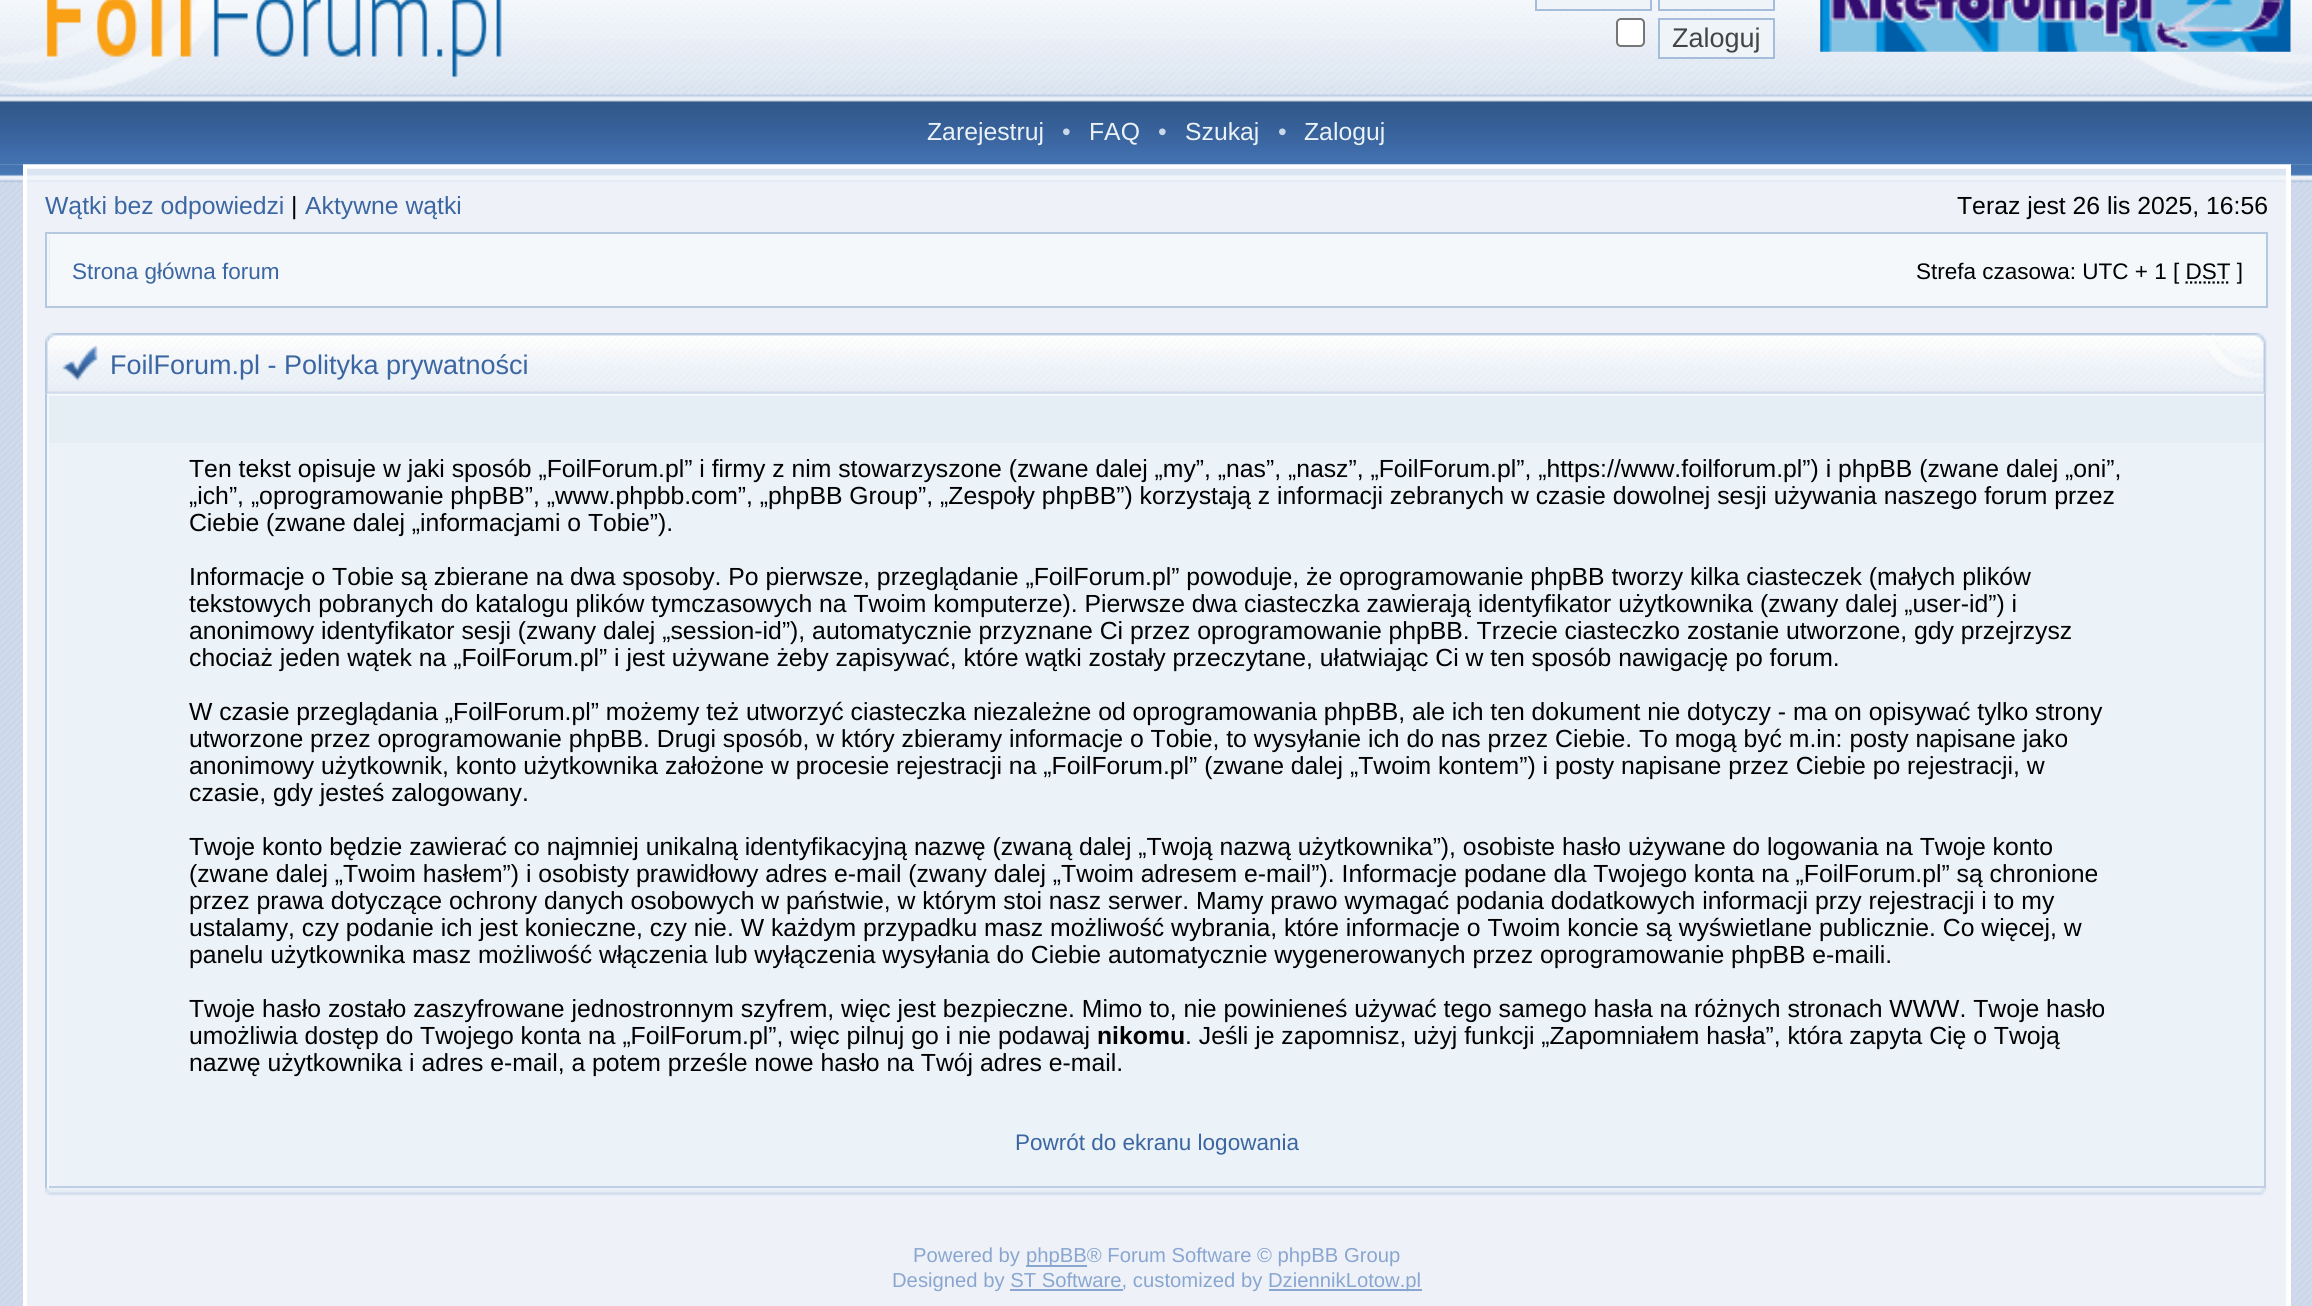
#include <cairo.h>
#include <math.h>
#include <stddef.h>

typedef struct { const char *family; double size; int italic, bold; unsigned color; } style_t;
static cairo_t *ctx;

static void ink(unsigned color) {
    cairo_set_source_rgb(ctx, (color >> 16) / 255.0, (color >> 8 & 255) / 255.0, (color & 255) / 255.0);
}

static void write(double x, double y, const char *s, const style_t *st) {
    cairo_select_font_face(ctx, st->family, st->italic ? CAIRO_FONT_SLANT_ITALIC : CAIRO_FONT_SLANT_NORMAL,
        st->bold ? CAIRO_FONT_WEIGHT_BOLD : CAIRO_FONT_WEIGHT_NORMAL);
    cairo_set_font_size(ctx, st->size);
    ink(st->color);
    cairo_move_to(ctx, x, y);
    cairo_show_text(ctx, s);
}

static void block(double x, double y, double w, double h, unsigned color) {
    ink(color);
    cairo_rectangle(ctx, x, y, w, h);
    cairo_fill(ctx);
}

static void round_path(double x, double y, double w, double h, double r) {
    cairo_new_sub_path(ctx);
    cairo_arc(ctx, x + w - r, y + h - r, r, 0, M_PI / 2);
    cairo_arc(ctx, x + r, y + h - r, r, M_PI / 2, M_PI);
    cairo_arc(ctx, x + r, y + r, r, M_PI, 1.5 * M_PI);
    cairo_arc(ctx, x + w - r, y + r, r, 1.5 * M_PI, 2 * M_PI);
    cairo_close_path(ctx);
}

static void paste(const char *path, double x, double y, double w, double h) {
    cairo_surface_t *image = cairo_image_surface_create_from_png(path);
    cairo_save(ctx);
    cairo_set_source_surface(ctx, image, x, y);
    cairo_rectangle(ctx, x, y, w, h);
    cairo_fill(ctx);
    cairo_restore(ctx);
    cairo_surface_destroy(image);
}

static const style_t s1 = {"Liberation Sans", 27, 0, 0, 0x444444};
static const style_t s2 = {"Liberation Sans", 24.75, 0, 0, 0xebf2f6};
static const style_t s3 = {"Liberation Sans", 24.75, 0, 0, 0xcad8ea};
static const style_t s4 = {"Liberation Sans", 24.75, 0, 0, 0x3b66a2};
static const style_t s5 = {"Liberation Sans", 24.75, 0, 0, 0x000000};
static const style_t s6 = {"Liberation Sans", 22.5, 0, 0, 0x3b66a2};
static const style_t s7 = {"Liberation Sans", 22.5, 0, 0, 0x000000};
static const style_t s8 = {"Liberation Sans", 27, 0, 0, 0x3b66a2};
static const style_t s9 = {"Liberation Sans", 24.75, 0, 1, 0x000000};
static const style_t s10 = {"Liberation Sans", 20.25, 0, 0, 0x89a6d0};

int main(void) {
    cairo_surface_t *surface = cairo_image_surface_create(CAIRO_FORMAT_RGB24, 2312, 1306);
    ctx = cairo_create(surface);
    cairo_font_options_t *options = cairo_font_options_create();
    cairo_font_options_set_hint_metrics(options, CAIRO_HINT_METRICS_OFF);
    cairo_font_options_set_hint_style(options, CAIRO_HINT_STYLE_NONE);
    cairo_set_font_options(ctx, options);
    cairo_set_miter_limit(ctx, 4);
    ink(0xffffff);
    cairo_paint(ctx);
    paste("pic1.png", 0, 94, 2312, 1212);
    paste("pic2.png", 0, 0, 2312, 95);
    paste("pic3.png", 0, 0, 222, 93);
    paste("pic4.png", 2125, 51, 187, 42);
    paste("pic5.png", 46, 0, 456, 78);
    ink(0xeff4f8);
    cairo_rectangle(ctx, 1536, -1, 115, 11);
    cairo_fill_preserve(ctx);
    ink(0xa5bcdb);
    cairo_stroke(ctx);
    ink(0xeff4f8);
    cairo_rectangle(ctx, 1659, -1, 115, 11);
    cairo_fill_preserve(ctx);
    ink(0xa5bcdb);
    cairo_stroke(ctx);
    ink(0xffffff);
    round_path(1617, 19, 27, 27, 4);
    cairo_fill_preserve(ctx);
    ink(0x767676);
    cairo_stroke(ctx);
    block(1660, 21, 113, 36, 0xeff4f8);
    cairo_rectangle(ctx, 1659, 19, 115, 39);
    ink(0xa5bcdb);
    cairo_stroke(ctx);
    write(1672, 47, "Zaloguj", &s1);
    paste("pic6.png", 1820, 0, 471, 52);
    paste("pic8.png", 0, 164, 2312, 19);
    cairo_rectangle(ctx, 25.5, 166.5, 2263, 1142);
    ink(0xffffff);
    cairo_set_line_width(ctx, 5);
    cairo_stroke(ctx);
    paste("pic7.png", 0, 94, 2312, 71);
    write(927, 140, "Zarejestruj", &s2);
    write(1062, 140, "•", &s3);
    write(1089, 140, "FAQ", &s2);
    write(1158, 140, "•", &s3);
    write(1185, 140, "Szukaj", &s2);
    write(1278, 140, "•", &s3);
    write(1304, 140, "Zaloguj", &s2);
    block(27, 182, 2259, 1124, 0xeef2f8);
    paste("pic9.png", 27, 168, 2259, 14);
    write(45, 214, "Wątki bez odpowiedzi", &s4);
    write(291, 214, "|", &s5);
    write(305, 214, "Aktywne wątki", &s4);
    write(1957, 214, "Teraz jest 26 lis 2025, 16:56", &s5);
    block(49, 281, 1, 25, 0xebf2f8);
    block(49, 236, 1, 45, 0xe5edf5);
    cairo_rectangle(ctx, 46, 233, 2221, 74);
    ink(0xb4c8e2);
    cairo_set_line_width(ctx, 2);
    cairo_stroke(ctx);
    block(50, 236, 2216, 70, 0xf5f8fb);
    block(47, 234, 2219, 2, 0xf4f8fb);
    block(47, 234, 2, 72, 0xf4f8fb);
    write(72, 279, "Strona główna forum", &s6);
    write(1916, 279, "Strefa czasowa: UTC + 1 [ DST ]", &s7);
    cairo_new_path(ctx);
    cairo_move_to(ctx, 2185.5, 282.5);
    cairo_line_to(ctx, 2230.5, 282.5);
    cairo_set_line_width(ctx, 2.2);
    cairo_set_dash(ctx, (double[]){2.25, 2.25}, 2, 0);
    cairo_stroke(ctx);
    paste("pic10.png", 45, 1188, 2216, 8);
    paste("pic11.png", 45, 333, 2223, 61);
    paste("pic12.png", 45, 333, 53, 61);
    paste("pic13.png", 2202, 333, 66, 61);
    write(110, 374, "FoilForum.pl - Polityka prywatności", &s8);
    paste("pic14.png", 45, 393, 2223, 1);
    block(45, 394, 2, 794, 0xb4c8e2);
    block(49, 443, 2215, 743, 0xebf2f8);
    block(49, 396, 2215, 47, 0xe5edf5);
    block(47, 394, 2219, 2, 0xf4f8fb);
    block(2264, 394, 2, 794, 0xbdcee5);
    block(47, 1186, 2219, 2, 0xbdcee5);
    block(47, 394, 2, 794, 0xf4f8fb);
    write(189, 477, "Ten tekst opisuje w jaki sposób „FoilForum.pl” i firmy z nim stowarzyszone (zwane dalej „my”, „nas”, „nasz”, „FoilForum.pl”, „https://www.foilforum.pl”) i phpBB (zwane dalej „oni”,", &s5);
    write(189, 504, "„ich”, „oprogramowanie phpBB”, „www.phpbb.com”, „phpBB Group”, „Zespoły phpBB”) korzystają z informacji zebranych w czasie dowolnej sesji używania naszego forum przez", &s5);
    write(189, 531, "Ciebie (zwane dalej „informacjami o Tobie”).", &s5);
    write(189, 585, "Informacje o Tobie są zbierane na dwa sposoby. Po pierwsze, przeglądanie „FoilForum.pl” powoduje, że oprogramowanie phpBB tworzy kilka ciasteczek (małych plików", &s5);
    write(189, 612, "tekstowych pobranych do katalogu plików tymczasowych na Twoim komputerze). Pierwsze dwa ciasteczka zawierają identyfikator użytkownika (zwany dalej „user-id”) i", &s5);
    write(189, 639, "anonimowy identyfikator sesji (zwany dalej „session-id”), automatycznie przyznane Ci przez oprogramowanie phpBB. Trzecie ciasteczko zostanie utworzone, gdy przejrzysz", &s5);
    write(189, 666, "chociaż jeden wątek na „FoilForum.pl” i jest używane żeby zapisywać, które wątki zostały przeczytane, ułatwiając Ci w ten sposób nawigację po forum.", &s5);
    write(189, 720, "W czasie przeglądania „FoilForum.pl” możemy też utworzyć ciasteczka niezależne od oprogramowania phpBB, ale ich ten dokument nie dotyczy - ma on opisywać tylko strony", &s5);
    write(189, 747, "utworzone przez oprogramowanie phpBB. Drugi sposób, w który zbieramy informacje o Tobie, to wysyłanie ich do nas przez Ciebie. To mogą być m.in: posty napisane jako", &s5);
    write(189, 774, "anonimowy użytkownik, konto użytkownika założone w procesie rejestracji na „FoilForum.pl” (zwane dalej „Twoim kontem”) i posty napisane przez Ciebie po rejestracji, w", &s5);
    write(189, 801, "czasie, gdy jesteś zalogowany.", &s5);
    write(189, 855, "Twoje konto będzie zawierać co najmniej unikalną identyfikacyjną nazwę (zwaną dalej „Twoją nazwą użytkownika”), osobiste hasło używane do logowania na Twoje konto", &s5);
    write(189, 882, "(zwane dalej „Twoim hasłem”) i osobisty prawidłowy adres e-mail (zwany dalej „Twoim adresem e-mail”). Informacje podane dla Twojego konta na „FoilForum.pl” są chronione", &s5);
    write(189, 909, "przez prawa dotyczące ochrony danych osobowych w państwie, w którym stoi nasz serwer. Mamy prawo wymagać podania dodatkowych informacji przy rejestracji i to my", &s5);
    write(189, 936, "ustalamy, czy podanie ich jest konieczne, czy nie. W każdym przypadku masz możliwość wybrania, które informacje o Twoim koncie są wyświetlane publicznie. Co więcej, w", &s5);
    write(189, 963, "panelu użytkownika masz możliwość włączenia lub wyłączenia wysyłania do Ciebie automatycznie wygenerowanych przez oprogramowanie phpBB e-maili.", &s5);
    write(189, 1017, "Twoje hasło zostało zaszyfrowane jednostronnym szyfrem, więc jest bezpieczne. Mimo to, nie powinieneś używać tego samego hasła na różnych stronach WWW. Twoje hasło", &s5);
    write(189, 1044, "umożliwia dostęp do Twojego konta na „FoilForum.pl”, więc pilnuj go i nie podawaj", &s5);
    write(1097, 1044, "nikomu", &s9);
    write(1185, 1044, ". Jeśli je zapomnisz, użyj funkcji „Zapomniałem hasła”, która zapyta Cię o Twoją", &s5);
    write(189, 1071, "nazwę użytkownika i adres e-mail, a potem prześle nowe hasło na Twój adres e-mail.", &s5);
    write(1015, 1150, "Powrót do ekranu logowania", &s6);
    paste("pic15.png", 45, 1188, 5, 7);
    paste("pic16.png", 2261, 1188, 7, 8);
    write(913, 1262, "Powered by", &s10);
    block(1026, 1265, 61, 2, 0x89a6d0);
    write(1026, 1262, "phpBB® Forum Software © phpBB Group", &s10);
    write(892, 1287, "Designed by ST Software, customized by", &s10);
    block(1010, 1289, 113, 2, 0x89a6d0);
    block(1269, 1289, 153, 2, 0x89a6d0);
    write(1268, 1287, "DziennikLotow.pl", &s10);
    cairo_surface_write_to_png(surface, "screenshot.png");
    cairo_font_options_destroy(options);
    cairo_destroy(ctx);
    cairo_surface_destroy(surface);
    return 0;
}
